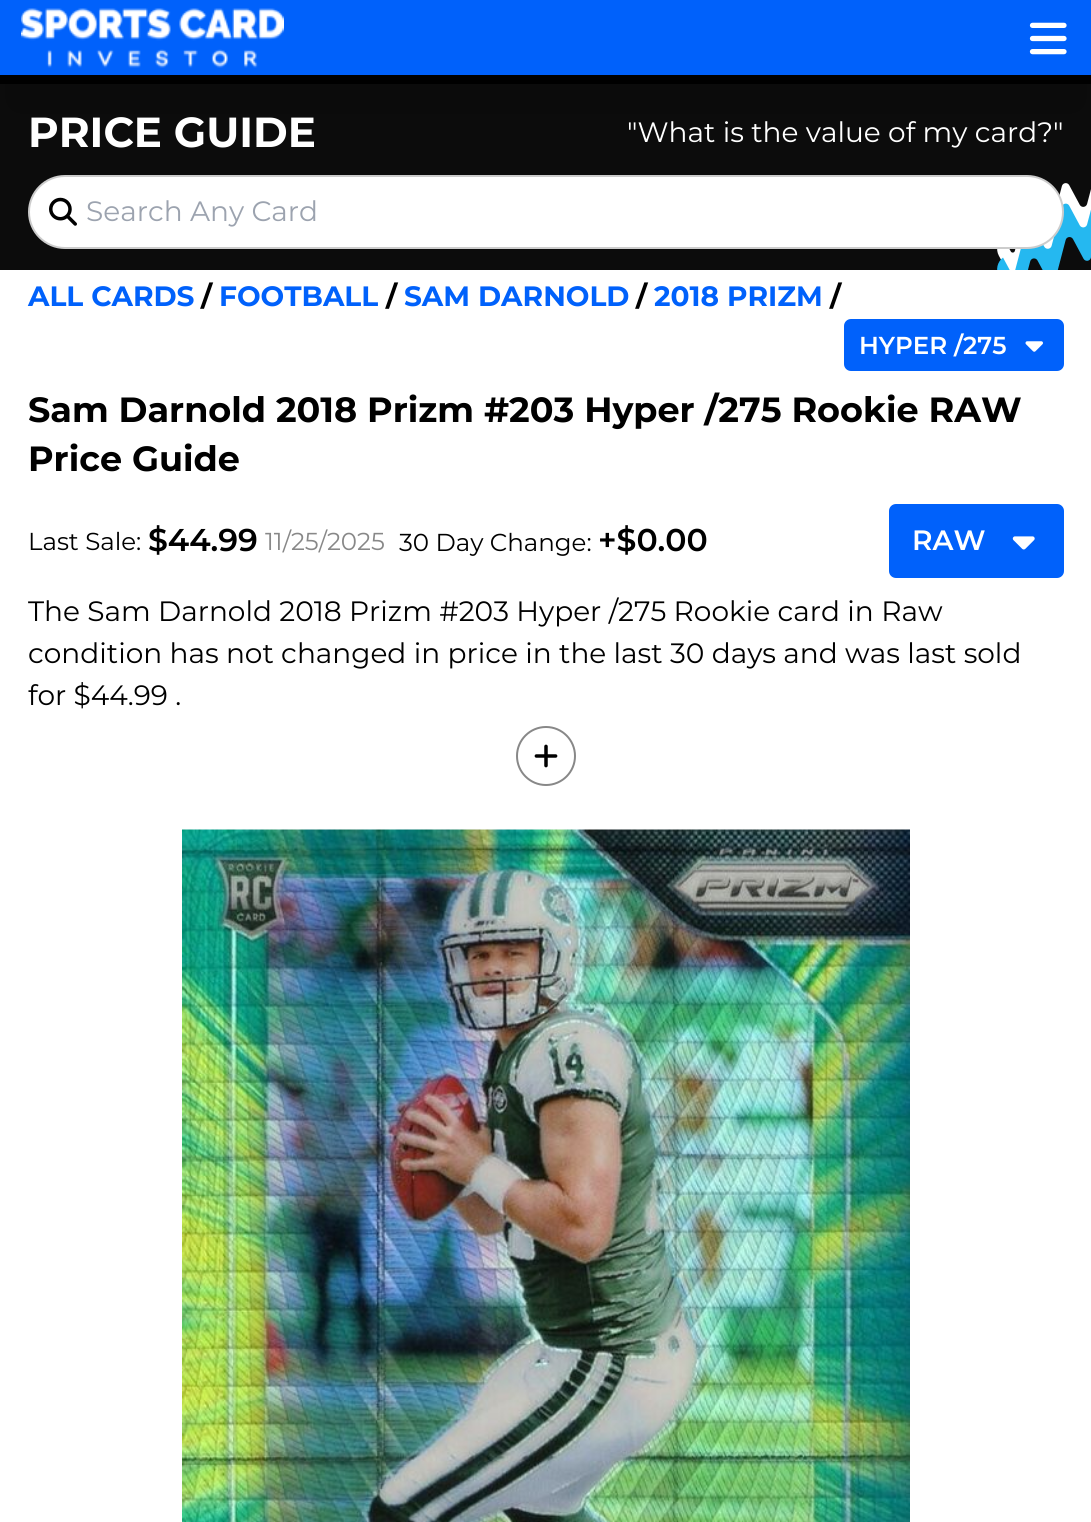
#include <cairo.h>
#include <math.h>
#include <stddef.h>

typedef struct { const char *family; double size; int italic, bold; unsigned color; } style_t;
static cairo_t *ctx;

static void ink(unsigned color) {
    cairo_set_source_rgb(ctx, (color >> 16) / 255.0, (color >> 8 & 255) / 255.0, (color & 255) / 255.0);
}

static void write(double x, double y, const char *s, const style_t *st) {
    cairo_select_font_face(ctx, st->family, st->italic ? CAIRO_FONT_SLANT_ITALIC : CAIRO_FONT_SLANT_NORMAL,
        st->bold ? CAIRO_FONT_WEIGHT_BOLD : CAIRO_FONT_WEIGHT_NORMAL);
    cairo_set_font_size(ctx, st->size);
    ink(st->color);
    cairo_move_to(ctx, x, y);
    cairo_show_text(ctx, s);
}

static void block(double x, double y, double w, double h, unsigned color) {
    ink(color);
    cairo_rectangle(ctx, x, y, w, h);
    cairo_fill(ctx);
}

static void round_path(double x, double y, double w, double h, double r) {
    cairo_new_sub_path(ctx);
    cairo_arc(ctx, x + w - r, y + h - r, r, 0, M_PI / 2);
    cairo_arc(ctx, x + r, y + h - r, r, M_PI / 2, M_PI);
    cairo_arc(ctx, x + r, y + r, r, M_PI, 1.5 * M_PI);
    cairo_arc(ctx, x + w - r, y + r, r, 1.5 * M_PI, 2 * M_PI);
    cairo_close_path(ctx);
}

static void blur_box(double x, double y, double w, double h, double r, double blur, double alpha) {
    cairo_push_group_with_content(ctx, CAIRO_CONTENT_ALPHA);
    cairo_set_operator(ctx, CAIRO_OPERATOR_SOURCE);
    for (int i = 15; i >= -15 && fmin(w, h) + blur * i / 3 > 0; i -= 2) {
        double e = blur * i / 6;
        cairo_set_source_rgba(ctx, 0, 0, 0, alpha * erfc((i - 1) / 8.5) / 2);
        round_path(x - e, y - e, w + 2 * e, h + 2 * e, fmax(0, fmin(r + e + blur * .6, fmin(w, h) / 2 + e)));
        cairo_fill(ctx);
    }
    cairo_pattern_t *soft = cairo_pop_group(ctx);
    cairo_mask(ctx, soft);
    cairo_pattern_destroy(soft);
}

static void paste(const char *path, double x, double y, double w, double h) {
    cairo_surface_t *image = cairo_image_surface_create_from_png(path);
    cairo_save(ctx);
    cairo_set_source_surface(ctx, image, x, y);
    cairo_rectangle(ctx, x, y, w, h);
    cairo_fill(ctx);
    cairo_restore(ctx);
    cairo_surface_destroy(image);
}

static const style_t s1 = {"Montserrat", 42, 0, 1, 0xffffff};
static const style_t s2 = {"Montserrat", 28, 0, 0, 0xffffff};
static const style_t s3 = {"Montserrat", 28, 0, 0, 0x9ca3af};
static const style_t s4 = {"Montserrat", 28, 0, 1, 0x0061fb};
static const style_t s5 = {"Montserrat", 28, 0, 1, 0x000000};
static const style_t s6 = {"Montserrat SemiBold", 24.5, 0, 0, 0xffffff};
static const style_t s7 = {"Montserrat", 35, 0, 1, 0x000000};
static const style_t s8 = {"Montserrat", 24.5, 0, 0, 0x000000};
static const style_t s9 = {"Montserrat SemiBold", 31.5, 0, 0, 0x000000};
static const style_t s10 = {"Montserrat", 24.5, 0, 0, 0x888888};
static const style_t s11 = {"Montserrat SemiBold", 28, 0, 0, 0xffffff};
static const style_t s12 = {"Montserrat", 28, 0, 0, 0x000000};

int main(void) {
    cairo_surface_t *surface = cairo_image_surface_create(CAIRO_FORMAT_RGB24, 1091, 1522);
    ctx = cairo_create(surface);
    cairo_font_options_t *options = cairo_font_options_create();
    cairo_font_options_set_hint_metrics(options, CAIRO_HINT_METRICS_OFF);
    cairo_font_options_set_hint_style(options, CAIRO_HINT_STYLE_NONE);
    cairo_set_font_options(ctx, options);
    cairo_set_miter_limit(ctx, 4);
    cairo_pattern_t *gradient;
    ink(0xffffff);
    cairo_paint(ctx);
    block(0, 84, 1091, 186, 0x0c0c0c);
    paste("pic4.png", 997, 183, 94, 87);
    ink(0xffffff);
    round_path(29, 176, 1034, 72, 36);
    cairo_fill_preserve(ctx);
    ink(0xcccccc);
    cairo_stroke(ctx);
    ink(0x000000);
    blur_box(9, 44, 1074, 66, 0, 22, 0.1);
    block(0, 0, 1091, 75, 0x0061fb);
    block(0, 75, 1091, 9, 0x000000);
    paste("pic1.png", 21, 8, 263, 60);
    paste("pic2.png", 1029, 22, 38, 33);
    write(28, 147, "PRICE GUIDE", &s1);
    write(627, 142, "\"What is the value of my card?\"", &s2);
    paste("pic3.png", 49, 197, 28, 29);
    write(86, 221, "Search Any Card", &s3);
    write(28, 306, "ALL CARDS", &s4);
    write(201, 306, "/", &s5);
    write(219, 306, "FOOTBALL", &s4);
    write(386, 306, "/", &s5);
    write(404, 306, "SAM DARNOLD", &s4);
    write(636, 306, "/", &s5);
    write(654, 306, "2018 PRIZM", &s4);
    write(830, 306, "/", &s5);
    ink(0x0061fb);
    round_path(845, 320, 218, 50, 6);
    cairo_fill_preserve(ctx);
    cairo_stroke(ctx);
    write(859, 354, "HYPER /275", &s6);
    paste("pic5.png", 1025, 341, 18, 11);
    write(28, 422, "Sam Darnold 2018 Prizm #203 Hyper /275 Rookie RAW", &s7);
    write(28, 471, "Price Guide", &s7);
    write(28, 550, "Last Sale:", &s8);
    write(148, 551, "$44.99", &s9);
    write(265, 550, "11/25/2025", &s10);
    write(399, 551, "30 Day Change:", &s8);
    write(598, 551, "+$0.00", &s9);
    ink(0x0061fb);
    round_path(890, 505, 173, 72, 6);
    cairo_fill_preserve(ctx);
    cairo_stroke(ctx);
    write(912, 550, "RAW", &s11);
    paste("pic6.png", 1012, 536, 23, 14);
    write(28, 621, "The Sam Darnold 2018 Prizm #203 Hyper /275 Rookie card in Raw", &s12);
    write(28, 663, "condition has not changed in price in the last 30 days and was last sold", &s12);
    write(28, 705, "for $44.99 .", &s12);
    gradient = cairo_pattern_create_linear(546, 816, 546, 704);
    cairo_pattern_add_color_stop_rgba(gradient, 0.1, 1, 1, 1, 1);
    cairo_pattern_add_color_stop_rgba(gradient, 1, 1, 1, 1, 0);
    cairo_set_source(ctx, gradient);
    cairo_pattern_destroy(gradient);
    cairo_rectangle(ctx, 81, 706, 2, 3);
    cairo_fill(ctx);
    cairo_arc(ctx, 546, 756, 29, 0, 2 * M_PI);
    ink(0x888888);
    cairo_stroke(ctx);
    paste("pic7.png", 534, 744, 24, 24);
    paste("pic8.png", 182, 829, 728, 693);
    cairo_surface_write_to_png(surface, "screenshot.png");
    cairo_font_options_destroy(options);
    cairo_destroy(ctx);
    cairo_surface_destroy(surface);
    return 0;
}
